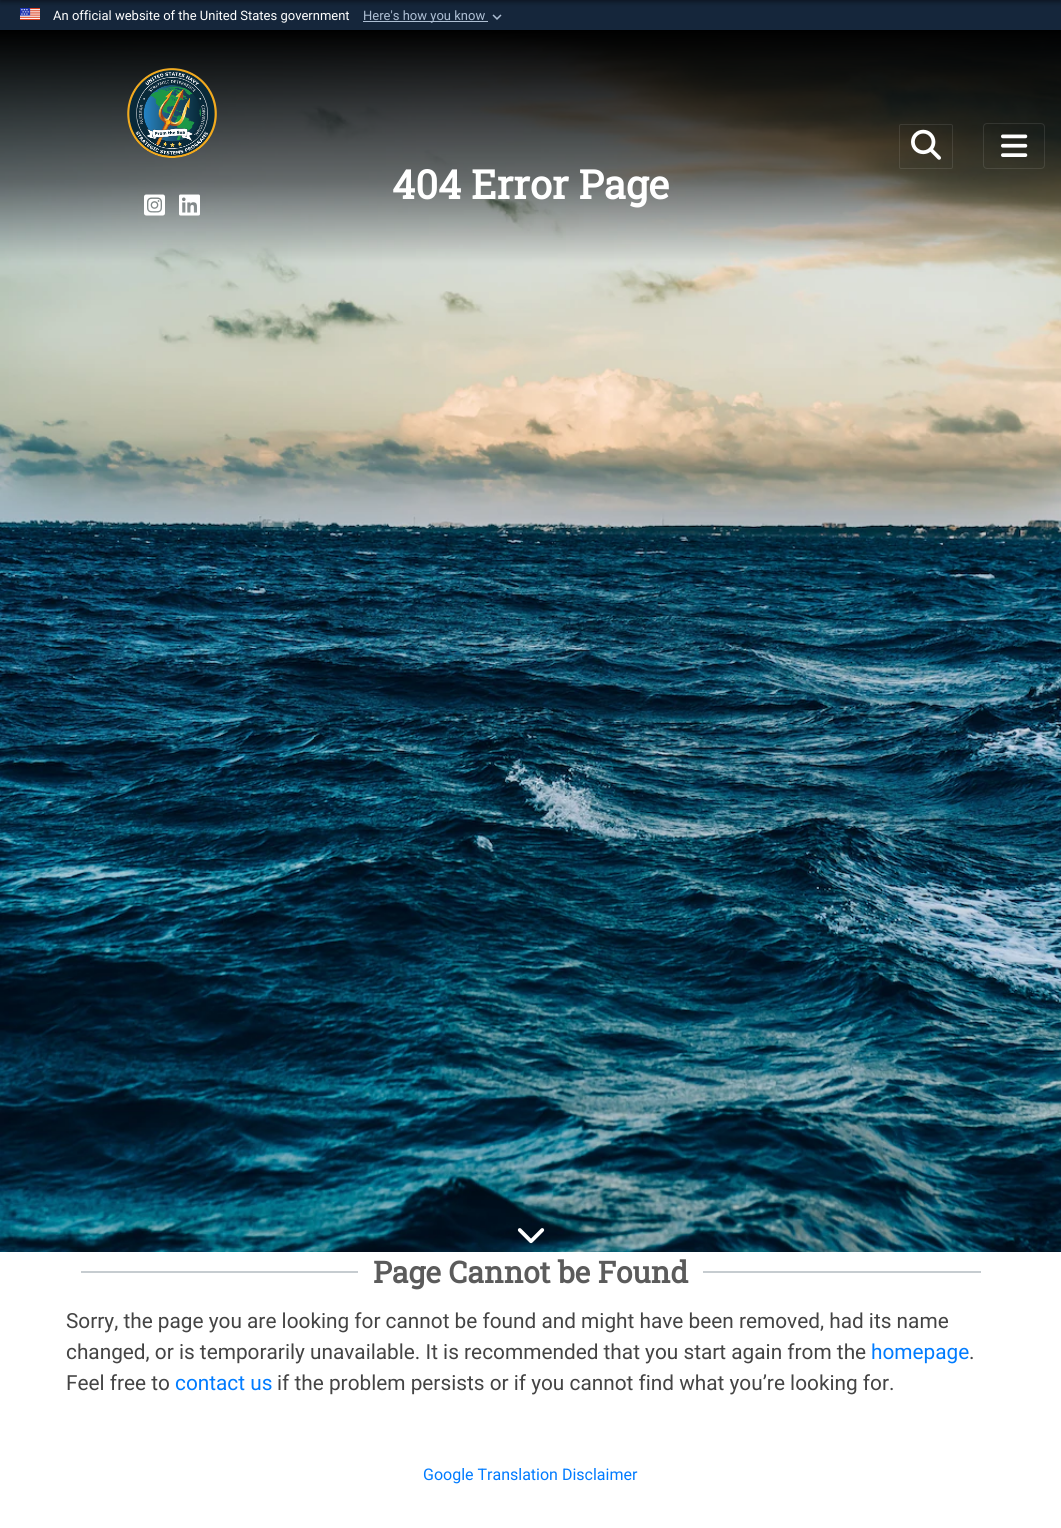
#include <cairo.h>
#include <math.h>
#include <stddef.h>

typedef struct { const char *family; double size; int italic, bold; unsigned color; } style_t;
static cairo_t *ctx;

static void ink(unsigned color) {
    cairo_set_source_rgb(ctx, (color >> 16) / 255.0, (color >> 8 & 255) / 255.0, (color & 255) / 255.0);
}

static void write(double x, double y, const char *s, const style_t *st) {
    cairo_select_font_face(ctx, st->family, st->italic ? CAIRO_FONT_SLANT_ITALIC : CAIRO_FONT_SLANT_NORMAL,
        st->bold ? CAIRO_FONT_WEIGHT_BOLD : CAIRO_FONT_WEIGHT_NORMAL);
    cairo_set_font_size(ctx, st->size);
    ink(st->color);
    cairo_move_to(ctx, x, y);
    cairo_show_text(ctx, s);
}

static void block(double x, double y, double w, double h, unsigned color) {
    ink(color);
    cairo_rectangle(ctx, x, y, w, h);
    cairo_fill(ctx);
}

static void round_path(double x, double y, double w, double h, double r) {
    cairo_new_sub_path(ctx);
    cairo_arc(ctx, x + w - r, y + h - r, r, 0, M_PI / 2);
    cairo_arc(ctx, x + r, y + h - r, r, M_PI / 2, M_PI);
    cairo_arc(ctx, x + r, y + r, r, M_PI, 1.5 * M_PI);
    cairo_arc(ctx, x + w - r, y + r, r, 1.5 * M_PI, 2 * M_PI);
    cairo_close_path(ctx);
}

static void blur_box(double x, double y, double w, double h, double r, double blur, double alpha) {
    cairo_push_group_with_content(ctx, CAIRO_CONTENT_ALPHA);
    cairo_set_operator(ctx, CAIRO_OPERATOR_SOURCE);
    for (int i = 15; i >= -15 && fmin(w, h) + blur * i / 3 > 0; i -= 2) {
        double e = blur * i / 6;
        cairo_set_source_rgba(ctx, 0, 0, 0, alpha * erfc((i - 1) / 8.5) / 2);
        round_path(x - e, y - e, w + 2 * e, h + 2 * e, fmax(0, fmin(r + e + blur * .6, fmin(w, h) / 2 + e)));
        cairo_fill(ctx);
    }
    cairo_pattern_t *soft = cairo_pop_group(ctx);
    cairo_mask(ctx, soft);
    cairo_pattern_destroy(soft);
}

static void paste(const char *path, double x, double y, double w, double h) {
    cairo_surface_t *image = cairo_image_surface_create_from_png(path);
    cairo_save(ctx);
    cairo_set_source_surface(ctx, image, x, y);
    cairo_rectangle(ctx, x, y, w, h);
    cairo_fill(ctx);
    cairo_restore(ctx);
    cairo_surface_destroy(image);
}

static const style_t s1 = {"Roboto", 13, 0, 0, 0xffffff};
static const style_t s2 = {"Roboto", 13, 0, 0, 0xaebfd4};
static const style_t s3 = {"Roboto Slab", 40, 0, 1, 0xffffff};
static const style_t s4 = {"Roboto Slab", 30, 0, 1, 0x5b5b5b};
static const style_t s5 = {"Roboto", 20.8, 0, 0, 0x444444};
static const style_t s6 = {"Roboto", 20.8, 0, 0, 0x007bff};
static const style_t s7 = {"Roboto", 16, 0, 0, 0x007bff};

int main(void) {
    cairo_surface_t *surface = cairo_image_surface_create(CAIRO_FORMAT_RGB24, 1061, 1528);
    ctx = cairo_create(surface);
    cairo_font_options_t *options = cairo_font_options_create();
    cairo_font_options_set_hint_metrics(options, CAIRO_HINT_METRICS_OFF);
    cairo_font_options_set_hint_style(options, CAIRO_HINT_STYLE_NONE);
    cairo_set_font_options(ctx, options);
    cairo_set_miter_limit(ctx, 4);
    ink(0xffffff);
    cairo_paint(ctx);
    block(0, 0, 1061, 30, 0x15263b);
    paste("pic1.png", 20, 8, 20, 12);
    write(53, 20, "An official website of the United States government", &s1);
    block(363, 21, 125, 1, 0xaebfd4);
    write(363, 20, "Here's how you know", &s2);
    paste("pic2.png", 492, 14, 10, 6);
    ink(0x020406);
    blur_box(0, -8, 1061, 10, 0, 2.5, 0.5);
    paste("pic8.png", 0, 30, 1061, 1222);
    paste("pic3.png", 127, 68, 90, 91);
    paste("pic4.png", 144, 194, 21, 22);
    paste("pic5.png", 179, 194, 21, 22);
    round_path(899.5, 124.5, 53, 44, 1.5);
    cairo_set_source_rgba(ctx, 1, 1, 1, 0.1);
    cairo_set_line_width(ctx, 1);
    cairo_stroke(ctx);
    paste("pic6.png", 911, 129, 30, 31);
    round_path(983.5, 123.5, 61, 45, 3.5);
    cairo_stroke(ctx);
    paste("pic7.png", 1001, 134, 27, 23);
    write(392, 199, "404 Error Page", &s3);
    paste("pic9.png", 517, 1228, 28, 16);
    block(81, 1271, 277, 2, 0xc6ccd0);
    write(373, 1283, "Page Cannot be Found", &s4);
    block(703, 1271, 278, 2, 0xc6ccd0);
    write(66, 1328, "Sorry, the page you are looking for cannot be found and might have been removed, had its name", &s5);
    write(66, 1359, "changed, or is temporarily unavailable. It is recommended that you start again from the", &s5);
    write(871, 1359, "homepage", &s6);
    write(969, 1359, ".", &s5);
    write(66, 1390, "Feel free to", &s5);
    write(175, 1390, "contact us", &s6);
    write(277, 1390, "if the problem persists or if you cannot find what you’re looking for.", &s5);
    write(423, 1480, "Google Translation Disclaimer", &s7);
    cairo_surface_write_to_png(surface, "screenshot.png");
    cairo_font_options_destroy(options);
    cairo_destroy(ctx);
    cairo_surface_destroy(surface);
    return 0;
}
